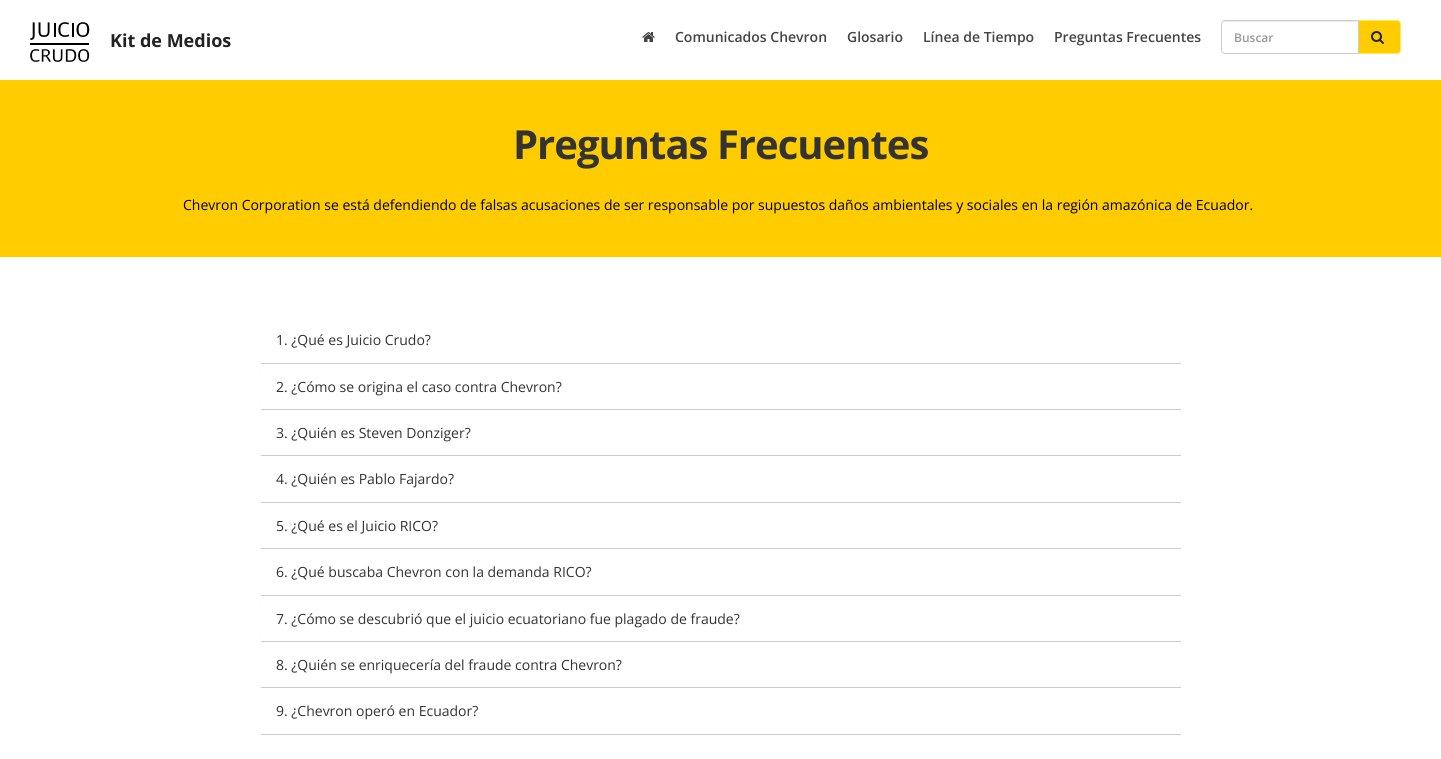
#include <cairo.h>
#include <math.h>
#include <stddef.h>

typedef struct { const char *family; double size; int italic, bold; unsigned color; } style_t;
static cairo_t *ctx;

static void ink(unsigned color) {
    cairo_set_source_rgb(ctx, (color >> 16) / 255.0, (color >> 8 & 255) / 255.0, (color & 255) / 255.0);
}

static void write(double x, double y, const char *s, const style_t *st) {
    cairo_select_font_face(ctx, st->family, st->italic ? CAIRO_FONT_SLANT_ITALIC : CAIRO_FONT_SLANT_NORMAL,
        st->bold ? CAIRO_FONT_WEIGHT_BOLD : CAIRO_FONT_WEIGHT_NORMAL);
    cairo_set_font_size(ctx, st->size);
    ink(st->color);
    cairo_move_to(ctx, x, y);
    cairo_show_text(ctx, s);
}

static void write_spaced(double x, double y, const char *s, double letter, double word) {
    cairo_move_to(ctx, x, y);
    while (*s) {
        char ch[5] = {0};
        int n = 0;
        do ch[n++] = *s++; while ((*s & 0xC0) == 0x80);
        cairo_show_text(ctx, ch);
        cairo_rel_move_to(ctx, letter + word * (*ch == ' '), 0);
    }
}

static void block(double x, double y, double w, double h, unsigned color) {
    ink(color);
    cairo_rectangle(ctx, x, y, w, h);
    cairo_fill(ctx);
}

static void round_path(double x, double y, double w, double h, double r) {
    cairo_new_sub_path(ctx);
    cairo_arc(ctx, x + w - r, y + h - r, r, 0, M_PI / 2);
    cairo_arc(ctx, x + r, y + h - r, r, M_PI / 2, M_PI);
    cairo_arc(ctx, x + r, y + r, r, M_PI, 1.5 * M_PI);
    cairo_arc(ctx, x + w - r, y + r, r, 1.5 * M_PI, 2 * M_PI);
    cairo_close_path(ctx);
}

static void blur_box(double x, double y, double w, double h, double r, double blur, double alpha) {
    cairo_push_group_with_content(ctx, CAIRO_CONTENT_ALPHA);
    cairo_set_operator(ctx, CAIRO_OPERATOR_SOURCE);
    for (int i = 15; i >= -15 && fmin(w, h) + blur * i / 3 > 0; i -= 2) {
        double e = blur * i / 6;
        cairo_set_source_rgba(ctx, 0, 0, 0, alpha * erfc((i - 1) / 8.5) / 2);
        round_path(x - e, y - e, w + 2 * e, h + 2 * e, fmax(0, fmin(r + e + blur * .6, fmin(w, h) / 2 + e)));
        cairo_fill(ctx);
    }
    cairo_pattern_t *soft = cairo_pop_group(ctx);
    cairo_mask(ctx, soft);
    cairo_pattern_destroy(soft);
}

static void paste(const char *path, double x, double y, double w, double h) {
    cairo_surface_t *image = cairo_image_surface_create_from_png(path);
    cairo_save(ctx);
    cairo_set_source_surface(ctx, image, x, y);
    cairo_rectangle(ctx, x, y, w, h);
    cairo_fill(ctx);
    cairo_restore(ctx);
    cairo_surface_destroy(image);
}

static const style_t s1 = {"Open Sans", 18, 0, 1, 0x222222};
static const style_t s2 = {"Open Sans SemiBold", 14, 0, 0, 0x444444};
static const style_t s3 = {"Open Sans SemiBold", 12, 0, 0, 0x999999};
static const style_t s4 = {"Open Sans", 14, 0, 0, 0x000000};
static const style_t s5 = {"Open Sans", 14, 0, 0, 0x333333};

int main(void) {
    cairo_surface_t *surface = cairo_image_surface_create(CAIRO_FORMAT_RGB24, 1441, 759);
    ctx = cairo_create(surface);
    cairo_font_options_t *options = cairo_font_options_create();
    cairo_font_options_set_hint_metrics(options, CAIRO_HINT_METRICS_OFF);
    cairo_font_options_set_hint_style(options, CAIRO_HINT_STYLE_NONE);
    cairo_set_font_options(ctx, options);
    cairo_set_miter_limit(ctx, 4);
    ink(0xffffff);
    cairo_paint(ctx);
    paste("pic1.png", 30, 22, 60, 40);
    write(110, 47, "Kit de Medios", &s1);
    paste("pic2.png", 642, 32, 13, 10);
    write(675, 42, "Comunicados Chevron", &s2);
    write(847, 42, "Glosario", &s2);
    write(923, 42, "Línea de Tiempo", &s2);
    write(1054, 42, "Preguntas Frecuentes", &s2);
    ink(0xffcc00);
    cairo_new_path(ctx);
    cairo_move_to(ctx, 1358.5, 20.5);
    cairo_line_to(ctx, 1397, 20.5);
    cairo_curve_to(ctx, 1399, 20.5, 1400.5, 22, 1400.5, 24);
    cairo_line_to(ctx, 1400.5, 50);
    cairo_curve_to(ctx, 1400.5, 52, 1399, 53.5, 1397, 53.5);
    cairo_line_to(ctx, 1358.5, 53.5);
    cairo_close_path(ctx);
    cairo_fill_preserve(ctx);
    ink(0xffe854);
    cairo_set_line_width(ctx, 1);
    cairo_stroke(ctx);
    ink(0xffffff);
    cairo_new_path(ctx);
    cairo_move_to(ctx, 1225, 20);
    cairo_line_to(ctx, 1359, 20);
    cairo_line_to(ctx, 1359, 54);
    cairo_line_to(ctx, 1225, 54);
    cairo_curve_to(ctx, 1223, 54, 1221, 52, 1221, 50);
    cairo_line_to(ctx, 1221, 24);
    cairo_curve_to(ctx, 1221, 22, 1223, 20, 1225, 20);
    cairo_close_path(ctx);
    cairo_fill(ctx);
    ink(0xececec);
    cairo_new_path(ctx);
    cairo_move_to(ctx, 1225, 22);
    cairo_line_to(ctx, 1358, 22);
    cairo_line_to(ctx, 1358, 21);
    cairo_line_to(ctx, 1225, 21);
    cairo_curve_to(ctx, 1223, 21, 1222, 23, 1222, 25);
    cairo_curve_to(ctx, 1222, 23, 1223, 22, 1225, 22);
    cairo_close_path(ctx);
    cairo_fill(ctx);
    cairo_new_path(ctx);
    cairo_move_to(ctx, 1225, 20.5);
    cairo_line_to(ctx, 1358.5, 20.5);
    cairo_line_to(ctx, 1358.5, 53.5);
    cairo_line_to(ctx, 1225, 53.5);
    cairo_curve_to(ctx, 1223, 53.5, 1221.5, 52, 1221.5, 50);
    cairo_line_to(ctx, 1221.5, 24);
    cairo_curve_to(ctx, 1221.5, 22, 1223, 20.5, 1225, 20.5);
    cairo_close_path(ctx);
    ink(0xcccccc);
    cairo_stroke(ctx);
    write(1234, 42, "Buscar", &s3);
    paste("pic3.png", 1371, 31, 13, 13);
    block(0, 80, 1441, 177, 0xffcc00);
    cairo_select_font_face(ctx, "Open Sans", CAIRO_FONT_SLANT_NORMAL, CAIRO_FONT_WEIGHT_BOLD);
    cairo_set_font_size(ctx, 40);
    ink(0x333333);
    write_spaced(513, 159, "Preguntas Frecuentes", -1, 0);
    write(183, 210, "Chevron Corporation se está defendiendo de falsas acusaciones de ser responsable por supuestos daños ambientales y sociales en la región amazónica de Ecuador.", &s4);
    ink(0x000000);
    blur_box(261, 318, 920, 47, 4, 0.5, 0.05);
    ink(0xffffff);
    cairo_new_path(ctx);
    cairo_move_to(ctx, 264, 317);
    cairo_line_to(ctx, 1178, 317);
    cairo_curve_to(ctx, 1179.5, 317, 1181, 318.5, 1181, 320);
    cairo_line_to(ctx, 1181, 364);
    cairo_line_to(ctx, 261, 364);
    cairo_line_to(ctx, 261, 320);
    cairo_curve_to(ctx, 261, 318.5, 262.5, 317, 264, 317);
    cairo_close_path(ctx);
    cairo_fill(ctx);
    block(261, 363, 920, 1, 0xcccccc);
    write(276, 345, "1. ¿Qué es Juicio Crudo?", &s5);
    ink(0x000000);
    blur_box(261, 365, 920, 46, 4, 0.5, 0.05);
    ink(0xffffff);
    cairo_new_path(ctx);
    cairo_move_to(ctx, 264, 364);
    cairo_line_to(ctx, 1178, 364);
    cairo_curve_to(ctx, 1179.5, 364, 1181, 365.5, 1181, 367);
    cairo_line_to(ctx, 1181, 410);
    cairo_line_to(ctx, 261, 410);
    cairo_line_to(ctx, 261, 367);
    cairo_curve_to(ctx, 261, 365.5, 262.5, 364, 264, 364);
    cairo_close_path(ctx);
    cairo_fill(ctx);
    block(261, 409, 920, 1, 0xcccccc);
    write(276, 392, "2. ¿Cómo se origina el caso contra Chevron?", &s5);
    ink(0x000000);
    blur_box(261, 411, 920, 46, 4, 0.5, 0.05);
    ink(0xffffff);
    cairo_new_path(ctx);
    cairo_move_to(ctx, 264, 410);
    cairo_line_to(ctx, 1178, 410);
    cairo_curve_to(ctx, 1179.5, 410, 1181, 411.5, 1181, 413);
    cairo_line_to(ctx, 1181, 456);
    cairo_line_to(ctx, 261, 456);
    cairo_line_to(ctx, 261, 413);
    cairo_curve_to(ctx, 261, 411.5, 262.5, 410, 264, 410);
    cairo_close_path(ctx);
    cairo_fill(ctx);
    block(261, 455, 920, 1, 0xcccccc);
    write(276, 438, "3. ¿Quién es Steven Donziger?", &s5);
    ink(0x000000);
    blur_box(261, 457, 920, 47, 4, 0.5, 0.05);
    ink(0xffffff);
    cairo_new_path(ctx);
    cairo_move_to(ctx, 264, 456);
    cairo_line_to(ctx, 1178, 456);
    cairo_curve_to(ctx, 1179.5, 456, 1181, 457.5, 1181, 459);
    cairo_line_to(ctx, 1181, 503);
    cairo_line_to(ctx, 261, 503);
    cairo_line_to(ctx, 261, 459);
    cairo_curve_to(ctx, 261, 457.5, 262.5, 456, 264, 456);
    cairo_close_path(ctx);
    cairo_fill(ctx);
    block(261, 502, 920, 1, 0xcccccc);
    write(276, 484, "4. ¿Quién es Pablo Fajardo?", &s5);
    ink(0x000000);
    blur_box(261, 504, 920, 46, 4, 0.5, 0.05);
    ink(0xffffff);
    cairo_new_path(ctx);
    cairo_move_to(ctx, 264, 503);
    cairo_line_to(ctx, 1178, 503);
    cairo_curve_to(ctx, 1179.5, 503, 1181, 504.5, 1181, 506);
    cairo_line_to(ctx, 1181, 549);
    cairo_line_to(ctx, 261, 549);
    cairo_line_to(ctx, 261, 506);
    cairo_curve_to(ctx, 261, 504.5, 262.5, 503, 264, 503);
    cairo_close_path(ctx);
    cairo_fill(ctx);
    block(261, 548, 920, 1, 0xcccccc);
    write(276, 531, "5. ¿Qué es el Juicio RICO?", &s5);
    ink(0x000000);
    blur_box(261, 550, 920, 47, 4, 0.5, 0.05);
    ink(0xffffff);
    cairo_new_path(ctx);
    cairo_move_to(ctx, 264, 549);
    cairo_line_to(ctx, 1178, 549);
    cairo_curve_to(ctx, 1179.5, 549, 1181, 550.5, 1181, 552);
    cairo_line_to(ctx, 1181, 596);
    cairo_line_to(ctx, 261, 596);
    cairo_line_to(ctx, 261, 552);
    cairo_curve_to(ctx, 261, 550.5, 262.5, 549, 264, 549);
    cairo_close_path(ctx);
    cairo_fill(ctx);
    block(261, 595, 920, 1, 0xcccccc);
    write(276, 577, "6. ¿Qué buscaba Chevron con la demanda RICO?", &s5);
    ink(0x000000);
    blur_box(261, 597, 920, 46, 4, 0.5, 0.05);
    ink(0xffffff);
    cairo_new_path(ctx);
    cairo_move_to(ctx, 264, 596);
    cairo_line_to(ctx, 1178, 596);
    cairo_curve_to(ctx, 1179.5, 596, 1181, 597.5, 1181, 599);
    cairo_line_to(ctx, 1181, 642);
    cairo_line_to(ctx, 261, 642);
    cairo_line_to(ctx, 261, 599);
    cairo_curve_to(ctx, 261, 597.5, 262.5, 596, 264, 596);
    cairo_close_path(ctx);
    cairo_fill(ctx);
    block(261, 641, 920, 1, 0xcccccc);
    write(276, 624, "7. ¿Cómo se descubrió que el juicio ecuatoriano fue plagado de fraude?", &s5);
    ink(0x000000);
    blur_box(261, 643, 920, 46, 4, 0.5, 0.05);
    ink(0xffffff);
    cairo_new_path(ctx);
    cairo_move_to(ctx, 264, 642);
    cairo_line_to(ctx, 1178, 642);
    cairo_curve_to(ctx, 1179.5, 642, 1181, 643.5, 1181, 645);
    cairo_line_to(ctx, 1181, 688);
    cairo_line_to(ctx, 261, 688);
    cairo_line_to(ctx, 261, 645);
    cairo_curve_to(ctx, 261, 643.5, 262.5, 642, 264, 642);
    cairo_close_path(ctx);
    cairo_fill(ctx);
    block(261, 687, 920, 1, 0xcccccc);
    write(276, 670, "8. ¿Quién se enriquecería del fraude contra Chevron?", &s5);
    ink(0x000000);
    blur_box(261, 689, 920, 47, 4, 0.5, 0.05);
    ink(0xffffff);
    cairo_new_path(ctx);
    cairo_move_to(ctx, 264, 688);
    cairo_line_to(ctx, 1178, 688);
    cairo_curve_to(ctx, 1179.5, 688, 1181, 689.5, 1181, 691);
    cairo_line_to(ctx, 1181, 735);
    cairo_line_to(ctx, 261, 735);
    cairo_line_to(ctx, 261, 691);
    cairo_curve_to(ctx, 261, 689.5, 262.5, 688, 264, 688);
    cairo_close_path(ctx);
    cairo_fill(ctx);
    block(261, 734, 920, 1, 0xcccccc);
    write(276, 716, "9. ¿Chevron operó en Ecuador?", &s5);
    ink(0xffffff);
    cairo_new_path(ctx);
    cairo_move_to(ctx, 264, 735);
    cairo_line_to(ctx, 1178, 735);
    cairo_curve_to(ctx, 1179.5, 735, 1181, 736.5, 1181, 738);
    cairo_line_to(ctx, 1181, 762);
    cairo_line_to(ctx, 261, 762);
    cairo_line_to(ctx, 261, 738);
    cairo_curve_to(ctx, 261, 736.5, 262.5, 735, 264, 735);
    cairo_close_path(ctx);
    cairo_fill(ctx);
    cairo_surface_write_to_png(surface, "screenshot.png");
    cairo_font_options_destroy(options);
    cairo_destroy(ctx);
    cairo_surface_destroy(surface);
    return 0;
}
